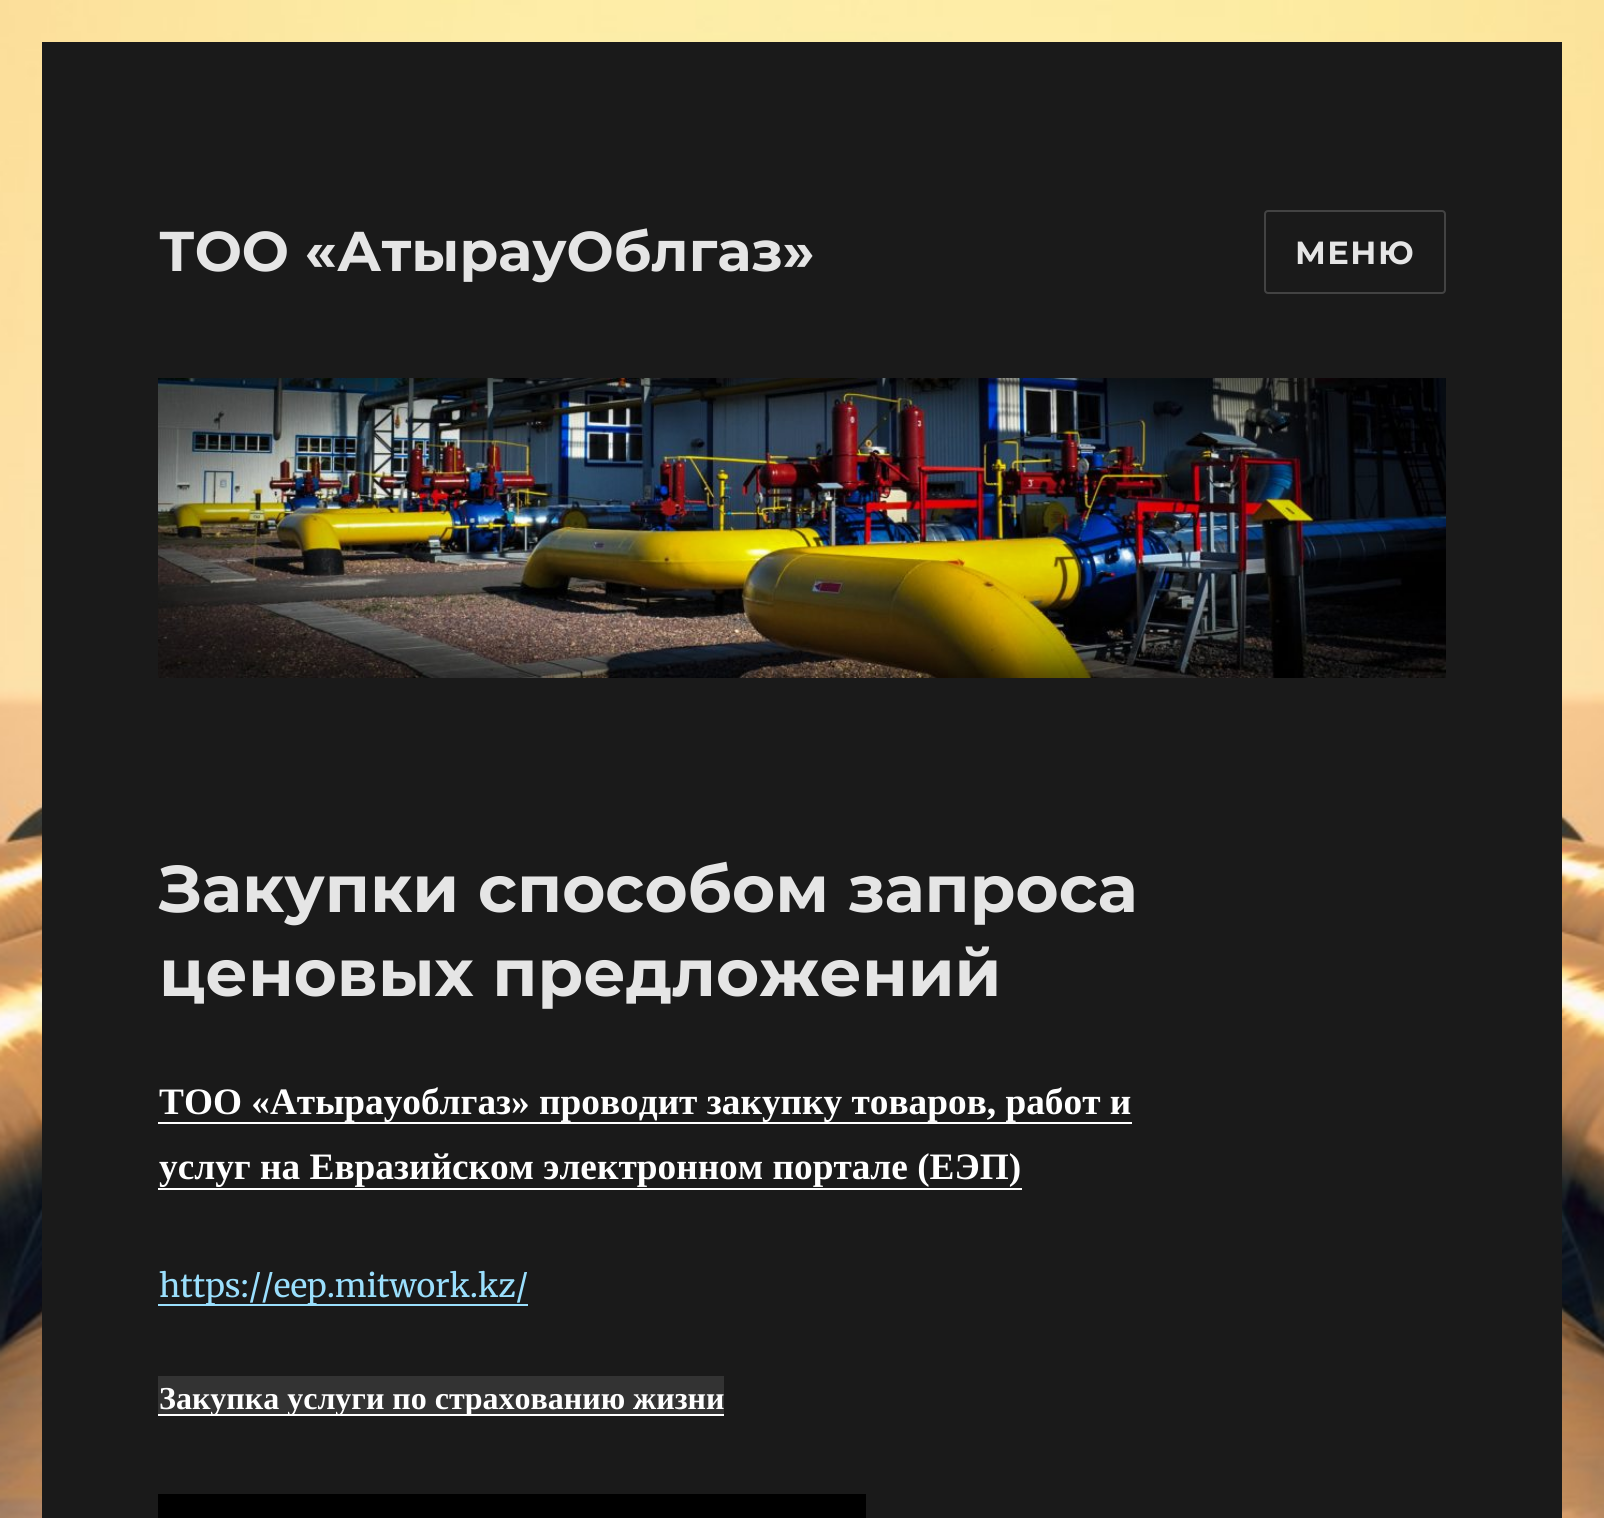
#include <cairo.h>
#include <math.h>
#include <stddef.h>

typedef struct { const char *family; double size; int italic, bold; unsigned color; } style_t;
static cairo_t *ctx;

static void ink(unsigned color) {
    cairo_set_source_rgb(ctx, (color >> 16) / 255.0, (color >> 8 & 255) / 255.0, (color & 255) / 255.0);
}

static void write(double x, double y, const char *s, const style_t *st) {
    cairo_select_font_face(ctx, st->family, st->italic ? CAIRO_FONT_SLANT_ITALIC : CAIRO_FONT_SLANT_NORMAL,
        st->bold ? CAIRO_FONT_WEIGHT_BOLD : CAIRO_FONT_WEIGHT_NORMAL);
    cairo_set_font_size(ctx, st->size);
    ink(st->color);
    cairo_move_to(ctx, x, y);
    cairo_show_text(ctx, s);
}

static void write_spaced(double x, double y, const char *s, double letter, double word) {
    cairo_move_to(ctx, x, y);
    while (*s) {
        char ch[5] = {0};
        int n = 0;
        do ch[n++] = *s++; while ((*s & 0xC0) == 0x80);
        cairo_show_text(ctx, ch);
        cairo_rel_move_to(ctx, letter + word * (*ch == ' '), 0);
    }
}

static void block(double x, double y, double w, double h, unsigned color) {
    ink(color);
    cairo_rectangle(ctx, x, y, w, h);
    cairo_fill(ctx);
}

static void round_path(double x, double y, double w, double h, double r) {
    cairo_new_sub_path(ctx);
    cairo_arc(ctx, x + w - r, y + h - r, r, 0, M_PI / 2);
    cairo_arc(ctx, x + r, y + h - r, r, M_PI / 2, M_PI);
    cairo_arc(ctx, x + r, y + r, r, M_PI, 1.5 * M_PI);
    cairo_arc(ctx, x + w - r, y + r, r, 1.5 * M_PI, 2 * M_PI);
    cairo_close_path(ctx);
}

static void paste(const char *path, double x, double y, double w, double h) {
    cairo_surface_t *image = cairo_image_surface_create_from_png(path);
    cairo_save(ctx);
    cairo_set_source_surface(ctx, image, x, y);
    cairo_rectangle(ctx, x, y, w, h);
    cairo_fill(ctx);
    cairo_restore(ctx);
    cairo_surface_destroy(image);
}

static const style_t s1 = {"Montserrat", 56, 0, 1, 0xe5e5e5};
static const style_t s2 = {"Montserrat", 66, 0, 1, 0xe5e5e5};
static const style_t s3 = {"Liberation Serif", 37.3, 0, 1, 0xffffff};
static const style_t s4 = {"Merriweather", 32, 0, 0, 0x9adffd};
static const style_t s5 = {"Liberation Serif", 32, 0, 1, 0xffffff};

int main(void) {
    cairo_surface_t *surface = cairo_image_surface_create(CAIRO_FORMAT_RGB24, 1604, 1518);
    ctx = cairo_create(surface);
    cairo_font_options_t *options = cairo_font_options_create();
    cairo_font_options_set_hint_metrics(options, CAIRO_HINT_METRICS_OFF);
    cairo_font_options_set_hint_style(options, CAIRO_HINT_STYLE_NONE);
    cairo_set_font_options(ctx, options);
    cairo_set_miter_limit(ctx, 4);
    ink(0xffffff);
    cairo_paint(ctx);
    paste("pic1.png", 0, 0, 1604, 1518);
    block(42, 42, 1520, 1476, 0x1a1a1a);
    write(159, 271, "ТОО «АтырауОблгаз»", &s1);
    round_path(1265, 211, 180, 82, 3);
    ink(0x434343);
    cairo_stroke(ctx);
    cairo_set_font_size(ctx, 32);
    ink(0xe5e5e5);
    write_spaced(1295, 264, "МЕНЮ", 1.5, 0);
    paste("pic2.png", 158, 378, 1288, 300);
    write(159, 912, "Закупки способом запроса", &s2);
    write(159, 996, "ценовых предложений", &s2);
    block(158, 1122, 974, 2, 0xffffff);
    write(159, 1114, "ТОО «Атырауоблгаз» проводит закупку товаров, работ и", &s3);
    write(159, 1179, "услуг на Евразийском электронном портале (ЕЭП)", &s3);
    block(158, 1188, 864, 2, 0xffffff);
    block(158, 1304, 370, 2, 0x9adffd);
    write(159, 1297, "https://eep.mitwork.kz/", &s4);
    block(158, 1376, 566, 38, 0x333333);
    block(158, 1414, 566, 2, 0xffffff);
    write(159, 1409, "Закупка услуги по страхованию жизни", &s5);
    block(158, 1494, 708, 24, 0x000000);
    cairo_surface_write_to_png(surface, "screenshot.png");
    cairo_font_options_destroy(options);
    cairo_destroy(ctx);
    cairo_surface_destroy(surface);
    return 0;
}
